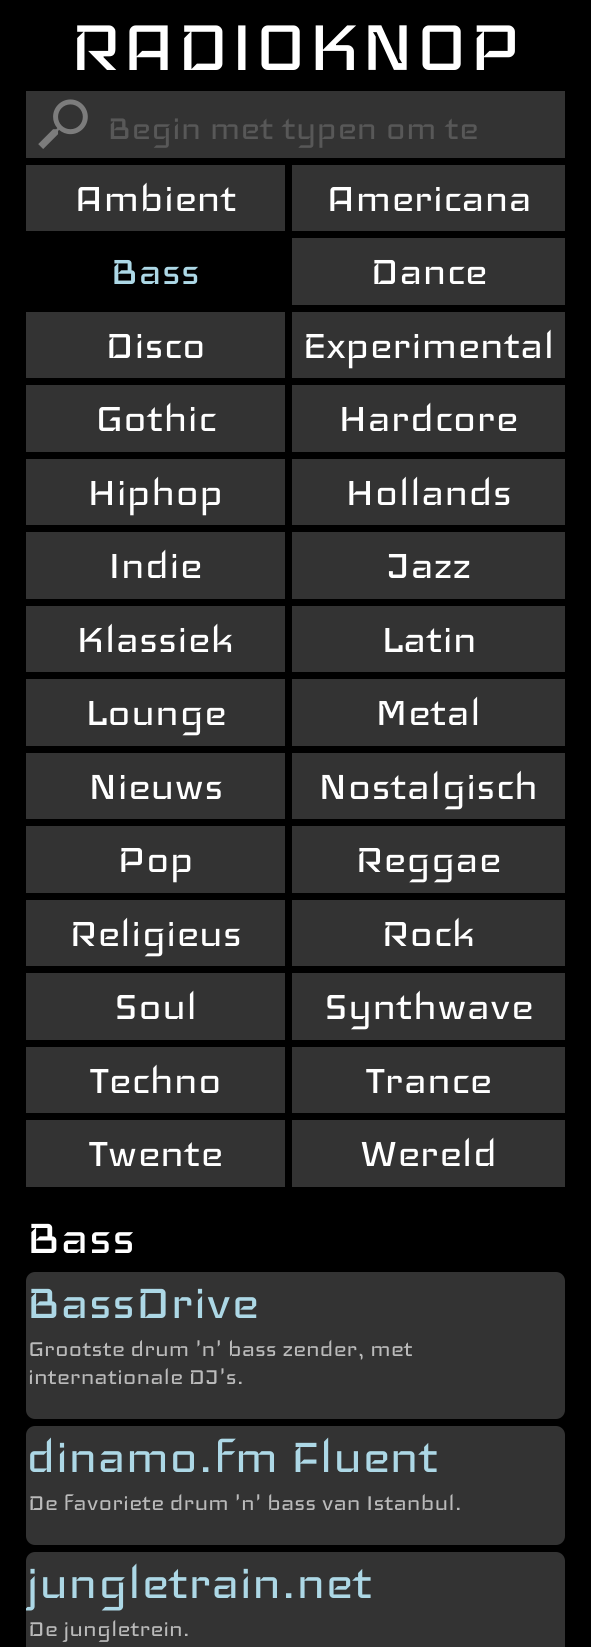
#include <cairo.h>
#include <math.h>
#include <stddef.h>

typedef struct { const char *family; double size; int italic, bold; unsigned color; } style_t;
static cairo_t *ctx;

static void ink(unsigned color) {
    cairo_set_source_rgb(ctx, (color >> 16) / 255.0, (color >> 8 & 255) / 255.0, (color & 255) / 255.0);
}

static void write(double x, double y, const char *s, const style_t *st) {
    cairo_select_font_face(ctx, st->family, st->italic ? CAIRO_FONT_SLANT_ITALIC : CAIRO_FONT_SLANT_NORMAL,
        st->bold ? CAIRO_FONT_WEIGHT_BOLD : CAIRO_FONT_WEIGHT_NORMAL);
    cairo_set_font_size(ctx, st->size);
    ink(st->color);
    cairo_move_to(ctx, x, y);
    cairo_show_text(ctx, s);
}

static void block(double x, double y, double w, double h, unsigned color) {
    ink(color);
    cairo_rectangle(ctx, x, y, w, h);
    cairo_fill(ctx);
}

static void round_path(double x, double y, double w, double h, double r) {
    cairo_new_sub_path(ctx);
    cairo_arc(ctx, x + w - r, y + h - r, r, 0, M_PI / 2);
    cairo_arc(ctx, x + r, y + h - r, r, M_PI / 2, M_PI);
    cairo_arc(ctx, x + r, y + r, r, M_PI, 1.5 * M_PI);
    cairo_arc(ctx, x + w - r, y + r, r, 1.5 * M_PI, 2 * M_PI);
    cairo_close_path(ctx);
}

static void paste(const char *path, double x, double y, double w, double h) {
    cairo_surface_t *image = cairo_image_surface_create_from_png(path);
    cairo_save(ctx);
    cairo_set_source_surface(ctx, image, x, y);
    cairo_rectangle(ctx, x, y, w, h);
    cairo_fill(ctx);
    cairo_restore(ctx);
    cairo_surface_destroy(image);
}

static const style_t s1 = {"Iceland", 91, 0, 0, 0xffffff};
static const style_t s2 = {"Iceland", 42, 0, 0, 0x585858};
static const style_t s3 = {"Iceland", 49, 0, 0, 0xffffff};
static const style_t s4 = {"Iceland", 49, 0, 0, 0xadd8e6};
static const style_t s5 = {"Iceland", 59.5, 0, 0, 0xffffff};
static const style_t s6 = {"Iceland", 59.5, 0, 0, 0xadd8e6};
static const style_t s7 = {"Iceland", 28, 0, 0, 0xbbbbbb};

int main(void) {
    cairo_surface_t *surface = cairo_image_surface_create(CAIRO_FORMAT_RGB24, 591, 1647);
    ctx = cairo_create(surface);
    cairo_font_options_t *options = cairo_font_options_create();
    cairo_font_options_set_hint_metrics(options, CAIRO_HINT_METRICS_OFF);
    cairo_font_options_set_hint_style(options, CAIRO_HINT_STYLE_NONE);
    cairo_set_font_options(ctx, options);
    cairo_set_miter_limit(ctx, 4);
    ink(0x000000);
    cairo_paint(ctx);
    write(69, 70, "RADIOKNOP", &s1);
    block(26, 91, 539, 67, 0x333333);
    paste("pic1.png", 38, 99, 50, 50);
    write(107, 139, "Begin met typen om te", &s2);
    block(26, 165, 259, 66, 0x333333);
    write(74, 211, "Ambient", &s3);
    block(292, 165, 273, 66, 0x333333);
    write(326, 211, "Americana", &s3);
    write(110, 284, "Bass", &s4);
    block(292, 238, 273, 67, 0x333333);
    write(370, 284, "Dance", &s3);
    block(26, 312, 259, 66, 0x333333);
    write(105, 358, "Disco", &s3);
    block(292, 312, 273, 66, 0x333333);
    write(302, 358, "Experimental", &s3);
    block(26, 385, 259, 67, 0x333333);
    write(95, 431, "Gothic", &s3);
    block(292, 385, 273, 67, 0x333333);
    write(338, 431, "Hardcore", &s3);
    block(26, 459, 259, 66, 0x333333);
    write(87, 505, "Hiphop", &s3);
    block(292, 459, 273, 66, 0x333333);
    write(345, 505, "Hollands", &s3);
    block(26, 532, 259, 67, 0x333333);
    write(108, 578, "Indie", &s3);
    block(292, 532, 273, 67, 0x333333);
    write(386, 578, "Jazz", &s3);
    block(26, 606, 259, 66, 0x333333);
    write(76, 652, "Klassiek", &s3);
    block(292, 606, 273, 66, 0x333333);
    write(381, 652, "Latin", &s3);
    block(26, 679, 259, 67, 0x333333);
    write(85, 725, "Lounge", &s3);
    block(292, 679, 273, 67, 0x333333);
    write(375, 725, "Metal", &s3);
    block(26, 753, 259, 66, 0x333333);
    write(88, 799, "Nieuws", &s3);
    block(292, 753, 273, 66, 0x333333);
    write(318, 799, "Nostalgisch", &s3);
    block(26, 826, 259, 67, 0x333333);
    write(117, 872, "Pop", &s3);
    block(292, 826, 273, 67, 0x333333);
    write(355, 872, "Reggae", &s3);
    block(26, 900, 259, 66, 0x333333);
    write(69, 946, "Religieus", &s3);
    block(292, 900, 273, 66, 0x333333);
    write(381, 946, "Rock", &s3);
    block(26, 973, 259, 67, 0x333333);
    write(114, 1019, "Soul", &s3);
    block(292, 973, 273, 67, 0x333333);
    write(324, 1019, "Synthwave", &s3);
    block(26, 1047, 259, 66, 0x333333);
    write(90, 1093, "Techno", &s3);
    block(292, 1047, 273, 66, 0x333333);
    write(366, 1093, "Trance", &s3);
    block(26, 1120, 259, 67, 0x333333);
    write(89, 1166, "Twente", &s3);
    block(292, 1120, 273, 67, 0x333333);
    write(360, 1166, "Wereld", &s3);
    write(26, 1253, "Bass", &s5);
    ink(0x333333);
    round_path(26, 1272, 539, 147, 9);
    cairo_fill(ctx);
    write(26, 1318, "BassDrive", &s6);
    write(28, 1356, "Grootste drum 'n' bass zender, met", &s7);
    write(28, 1384, "internationale DJ's.", &s7);
    ink(0x333333);
    round_path(26, 1426, 539, 119, 9);
    cairo_fill(ctx);
    write(26, 1472, "dinamo.fm Fluent", &s6);
    write(28, 1510, "De favoriete drum 'n' bass van Istanbul.", &s7);
    ink(0x333333);
    round_path(26, 1552, 539, 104, 9);
    cairo_fill(ctx);
    cairo_save(ctx);
    round_path(26, 1552, 539, 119, 9);
    cairo_clip(ctx);
    write(26, 1598, "jungletrain.net", &s6);
    cairo_restore(ctx);
    write(28, 1636, "De jungletrein.", &s7);
    cairo_surface_write_to_png(surface, "screenshot.png");
    cairo_font_options_destroy(options);
    cairo_destroy(ctx);
    cairo_surface_destroy(surface);
    return 0;
}
